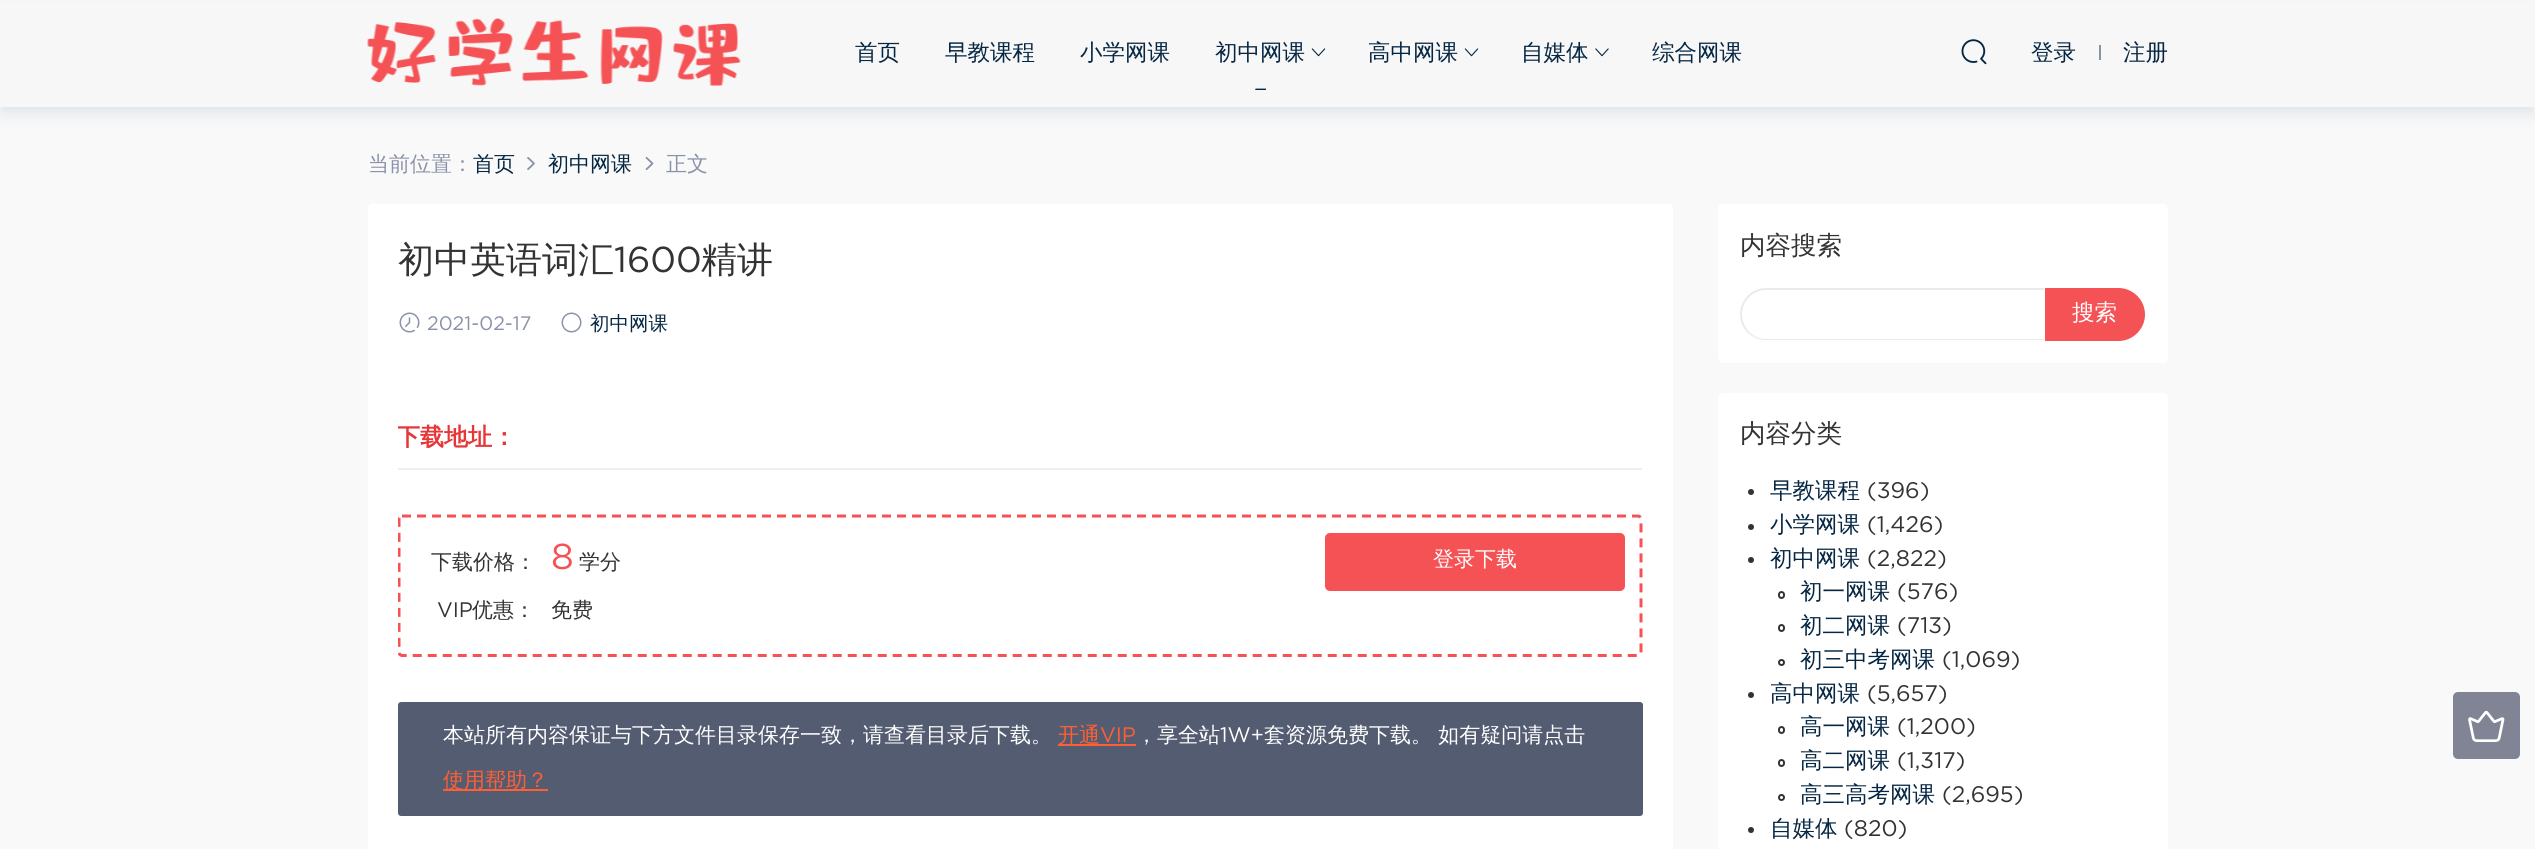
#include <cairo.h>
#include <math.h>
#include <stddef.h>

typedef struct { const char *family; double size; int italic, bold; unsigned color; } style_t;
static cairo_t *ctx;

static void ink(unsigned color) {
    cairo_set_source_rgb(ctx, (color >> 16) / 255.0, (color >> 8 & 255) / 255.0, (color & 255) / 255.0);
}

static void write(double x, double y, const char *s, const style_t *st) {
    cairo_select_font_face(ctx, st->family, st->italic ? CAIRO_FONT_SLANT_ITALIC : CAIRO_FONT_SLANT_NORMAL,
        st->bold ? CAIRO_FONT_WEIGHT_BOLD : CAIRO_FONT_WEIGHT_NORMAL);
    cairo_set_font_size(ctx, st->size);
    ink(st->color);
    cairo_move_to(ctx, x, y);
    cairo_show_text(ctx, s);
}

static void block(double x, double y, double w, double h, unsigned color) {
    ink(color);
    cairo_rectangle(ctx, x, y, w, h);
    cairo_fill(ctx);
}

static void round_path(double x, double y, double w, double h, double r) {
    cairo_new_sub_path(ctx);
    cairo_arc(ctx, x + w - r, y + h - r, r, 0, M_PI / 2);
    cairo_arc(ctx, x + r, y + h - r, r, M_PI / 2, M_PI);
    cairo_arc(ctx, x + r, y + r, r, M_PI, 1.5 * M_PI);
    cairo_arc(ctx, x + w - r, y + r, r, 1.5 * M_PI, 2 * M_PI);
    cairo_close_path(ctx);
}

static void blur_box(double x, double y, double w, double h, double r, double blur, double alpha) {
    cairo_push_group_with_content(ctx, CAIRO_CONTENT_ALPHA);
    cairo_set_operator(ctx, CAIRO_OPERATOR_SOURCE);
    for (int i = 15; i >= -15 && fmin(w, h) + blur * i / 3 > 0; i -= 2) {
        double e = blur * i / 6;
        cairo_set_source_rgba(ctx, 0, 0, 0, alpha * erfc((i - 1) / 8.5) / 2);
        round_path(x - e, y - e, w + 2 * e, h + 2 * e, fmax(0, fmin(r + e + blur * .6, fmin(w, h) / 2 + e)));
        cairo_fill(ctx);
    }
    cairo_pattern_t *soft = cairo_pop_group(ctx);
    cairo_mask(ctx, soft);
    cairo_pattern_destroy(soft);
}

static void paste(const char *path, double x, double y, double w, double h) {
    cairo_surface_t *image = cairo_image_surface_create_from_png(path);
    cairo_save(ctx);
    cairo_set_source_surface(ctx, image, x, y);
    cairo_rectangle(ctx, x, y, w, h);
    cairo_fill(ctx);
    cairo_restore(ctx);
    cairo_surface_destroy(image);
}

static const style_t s1 = {"WenQuanYi Zen Hei Medium", 22.5, 0, 0, 0x062743};
static const style_t s2 = {"WenQuanYi Zen Hei Medium", 21, 0, 0, 0x8a92a9};
static const style_t s3 = {"WenQuanYi Zen Hei Medium", 21, 0, 0, 0x062743};
static const style_t s4 = {"WenQuanYi Zen Hei Medium", 36, 0, 0, 0x333333};
static const style_t s5 = {"Gotham", 36, 0, 0, 0x333333};
static const style_t s6 = {"Gotham", 19.5, 0, 0, 0x8a92a9};
static const style_t s7 = {"WenQuanYi Zen Hei Medium", 19.5, 0, 0, 0x062743};
static const style_t s8 = {"WenQuanYi Zen Hei", 24, 0, 1, 0xe73538};
static const style_t s9 = {"WenQuanYi Zen Hei Medium", 21, 0, 0, 0x333333};
static const style_t s10 = {"Gotham", 36, 0, 0, 0xf55255};
static const style_t s11 = {"WenQuanYi Zen Hei Medium", 21, 0, 0, 0xffffff};
static const style_t s12 = {"Gotham", 21, 0, 0, 0x333333};
static const style_t s13 = {"WenQuanYi Zen Hei Medium", 21, 0, 0, 0xff5f33};
static const style_t s14 = {"Gotham", 21, 0, 0, 0xff5f33};
static const style_t s15 = {"Gotham", 21, 0, 0, 0xffffff};
static const style_t s16 = {"WenQuanYi Zen Hei Medium", 25.5, 0, 0, 0x333333};
static const style_t s17 = {"WenQuanYi Zen Hei Medium", 22.5, 0, 0, 0xffffff};
static const style_t s18 = {"Gotham", 22.5, 0, 0, 0x333333};

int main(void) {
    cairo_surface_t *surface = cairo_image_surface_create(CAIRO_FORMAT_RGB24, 2535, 849);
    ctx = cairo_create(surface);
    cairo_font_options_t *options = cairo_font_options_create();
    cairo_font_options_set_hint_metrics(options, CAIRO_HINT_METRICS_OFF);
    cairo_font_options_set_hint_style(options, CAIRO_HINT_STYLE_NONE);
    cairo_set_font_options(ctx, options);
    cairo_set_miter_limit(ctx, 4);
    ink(0xf9f9f9);
    cairo_paint(ctx);
    ink(0x113a5d);
    blur_box(0, 8, 2535, 106, 0, 7.5, 0.1);
    block(0, 2, 2535, 105, 0xf7f7f7);
    paste("pic1.png", 367, 18, 374, 68);
    write(855, 60, "首页", &s1);
    write(945, 60, "早教课程", &s1);
    write(1080, 60, "小学网课", &s1);
    write(1215, 60, "初中网课", &s1);
    paste("pic2.png", 1255, 88, 11, 2);
    paste("pic3.png", 1311, 48, 15, 9);
    write(1368, 60, "高中网课", &s1);
    paste("pic3.png", 1464, 48, 15, 9);
    write(1521, 60, "自媒体", &s1);
    paste("pic4.png", 1595, 48, 14, 9);
    write(1652, 60, "综合网课", &s1);
    paste("pic5.png", 1961, 39, 26, 26);
    write(2031, 60, "登录", &s1);
    block(2099, 45, 2, 15, 0x8a92a9);
    write(2123, 60, "注册", &s1);
    write(368, 171, "当前位置：", &s2);
    write(473, 171, "首页", &s3);
    paste("pic6.png", 527, 157, 8, 13);
    write(548, 171, "初中网课", &s3);
    paste("pic7.png", 645, 156, 9, 14);
    write(666, 171, "正文", &s2);
    ink(0xffffff);
    round_path(368, 204, 1305, 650, 5);
    cairo_fill(ctx);
    write(398, 272, "初中英语词汇", &s4);
    write(614, 272, "1600", &s5);
    write(701, 272, "精讲", &s4);
    paste("pic8.png", 399, 312, 21, 21);
    write(427, 330, "2021-02-17", &s6);
    paste("pic9.png", 561, 312, 21, 21);
    write(590, 330, "初中网课", &s7);
    cairo_save(ctx);
    cairo_rectangle(ctx, 398, 363, 1245, 480);
    cairo_clip(ctx);
    ink(0xeeeeee);
    cairo_new_path(ctx);
    cairo_move_to(ctx, 1642, 470);
    cairo_line_to(ctx, 370, 470);
    cairo_line_to(ctx, 381, 468);
    cairo_line_to(ctx, 1642, 468);
    cairo_close_path(ctx);
    cairo_fill(ctx);
    write(396, 445, "下载地址：", &s8);
    cairo_new_path(ctx);
    cairo_move_to(ctx, 402, 516);
    cairo_line_to(ctx, 1638, 516);
    cairo_curve_to(ctx, 1639.5, 516, 1641, 517.5, 1641, 519);
    cairo_line_to(ctx, 1641, 652.5);
    cairo_curve_to(ctx, 1641, 654, 1639.5, 655.5, 1638, 655.5);
    cairo_line_to(ctx, 402, 655.5);
    cairo_curve_to(ctx, 400.5, 655.5, 399, 654, 399, 652.5);
    cairo_line_to(ctx, 399, 519);
    cairo_curve_to(ctx, 399, 517.5, 400.5, 516, 402, 516);
    cairo_close_path(ctx);
    ink(0xf55255);
    cairo_set_line_width(ctx, 3);
    cairo_set_dash(ctx, (double[]){9, 6}, 2, 0);
    cairo_stroke(ctx);
    cairo_restore(ctx);
    write(431, 569, "下载价格：", &s9);
    write(551, 569, "8", &s10);
    write(579, 569, "学分", &s9);
    ink(0xf55255);
    round_path(1325, 533, 300, 58, 5);
    cairo_fill(ctx);
    write(1433, 566, "登录下载", &s11);
    write(437, 617, "VIP", &s12);
    write(472, 617, "优惠：", &s9);
    write(551, 617, "免费", &s9);
    ink(0x535c71);
    round_path(398, 702, 1245, 114, 3);
    cairo_fill(ctx);
    write(443, 742, "本站所有内容保证与下方文件目录保存一致，请查看目录后下载。", &s11);
    block(1058, 744, 78, 2, 0xff5f33);
    write(1058, 742, "开通", &s13);
    write(1100, 742, "VIP", &s14);
    write(1136, 742, "，享全站", &s11);
    write(1220, 742, "1W+", &s15);
    write(1264, 742, "套资源免费下载。 如有疑问请点击", &s11);
    block(443, 789, 105, 2, 0xff5f33);
    write(443, 787, "使用帮助？", &s13);
    ink(0xffffff);
    round_path(1718, 204, 450, 159, 5);
    cairo_fill(ctx);
    write(1740, 254, "内容搜索", &s16);
    ink(0xeaeaea);
    cairo_set_fill_rule(ctx, CAIRO_FILL_RULE_EVEN_ODD);
    cairo_new_path(ctx);
    cairo_move_to(ctx, 1766, 288);
    cairo_line_to(ctx, 2044, 288);
    cairo_line_to(ctx, 2044, 340);
    cairo_line_to(ctx, 1766, 340);
    cairo_curve_to(ctx, 1752, 340, 1740, 329, 1740, 314);
    cairo_curve_to(ctx, 1740, 300, 1752, 288, 1766, 288);
    cairo_close_path(ctx);
    cairo_move_to(ctx, 1766, 290);
    cairo_line_to(ctx, 2044, 290);
    cairo_line_to(ctx, 2044, 339);
    cairo_line_to(ctx, 1766, 339);
    cairo_curve_to(ctx, 1753, 339, 1742, 328, 1742, 314);
    cairo_curve_to(ctx, 1742, 301, 1753, 290, 1766, 290);
    cairo_close_path(ctx);
    cairo_fill(ctx);
    ink(0xf55255);
    cairo_new_path(ctx);
    cairo_move_to(ctx, 2045, 288);
    cairo_line_to(ctx, 2118.5, 288);
    cairo_curve_to(ctx, 2133, 288, 2145, 300, 2145, 314.5);
    cairo_curve_to(ctx, 2145, 329, 2133, 341, 2118.5, 341);
    cairo_line_to(ctx, 2045, 341);
    cairo_close_path(ctx);
    cairo_fill(ctx);
    write(2072, 320, "搜索", &s17);
    round_path(1718, 393, 450, 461, 5);
    cairo_fill(ctx);
    write(1740, 442, "内容分类", &s16);
    cairo_new_path(ctx);
    cairo_arc(ctx, 1751, 492, 3, 0, 2 * M_PI);
    cairo_fill(ctx);
    write(1770, 498, "早教课程", &s1);
    write(1867, 498, "(396)", &s18);
    cairo_new_path(ctx);
    cairo_arc(ctx, 1751, 527, 3, 0, 2 * M_PI);
    cairo_fill(ctx);
    write(1770, 532, "小学网课", &s1);
    write(1867, 532, "(1,426)", &s18);
    cairo_new_path(ctx);
    cairo_arc(ctx, 1751, 560, 3, 0, 2 * M_PI);
    cairo_fill(ctx);
    write(1770, 566, "初中网课", &s1);
    write(1867, 566, "(2,822)", &s18);
    round_path(1779, 592, 5, 6, 2.5);
    cairo_stroke(ctx);
    write(1800, 599, "初一网课", &s1);
    write(1897, 599, "(576)", &s18);
    round_path(1779, 625, 5, 6, 2.5);
    cairo_stroke(ctx);
    write(1800, 633, "初二网课", &s1);
    write(1897, 633, "(713)", &s18);
    cairo_new_path(ctx);
    cairo_arc(ctx, 1781.5, 662.5, 2.5, 0, 2 * M_PI);
    cairo_stroke(ctx);
    write(1800, 667, "初三中考网课", &s1);
    write(1942, 667, "(1,069)", &s18);
    cairo_new_path(ctx);
    cairo_arc(ctx, 1751, 695, 3, 0, 2 * M_PI);
    cairo_fill(ctx);
    write(1770, 701, "高中网课", &s1);
    write(1867, 701, "(5,657)", &s18);
    round_path(1779, 727, 5, 6, 2.5);
    cairo_stroke(ctx);
    write(1800, 734, "高一网课", &s1);
    write(1897, 734, "(1,200)", &s18);
    round_path(1779, 760, 5, 6, 2.5);
    cairo_stroke(ctx);
    write(1800, 768, "高二网课", &s1);
    write(1897, 768, "(1,317)", &s18);
    cairo_new_path(ctx);
    cairo_arc(ctx, 1781.5, 797.5, 2.5, 0, 2 * M_PI);
    cairo_stroke(ctx);
    write(1800, 802, "高三高考网课", &s1);
    write(1942, 802, "(2,695)", &s18);
    cairo_new_path(ctx);
    cairo_arc(ctx, 1751, 830, 3, 0, 2 * M_PI);
    cairo_fill(ctx);
    write(1770, 836, "自媒体", &s1);
    write(1844, 836, "(820)", &s18);
    ink(0x808495);
    round_path(2453, 692, 67, 67, 5);
    cairo_fill(ctx);
    paste("pic10.png", 2468, 710, 37, 32);
    cairo_surface_write_to_png(surface, "screenshot.png");
    cairo_font_options_destroy(options);
    cairo_destroy(ctx);
    cairo_surface_destroy(surface);
    return 0;
}
